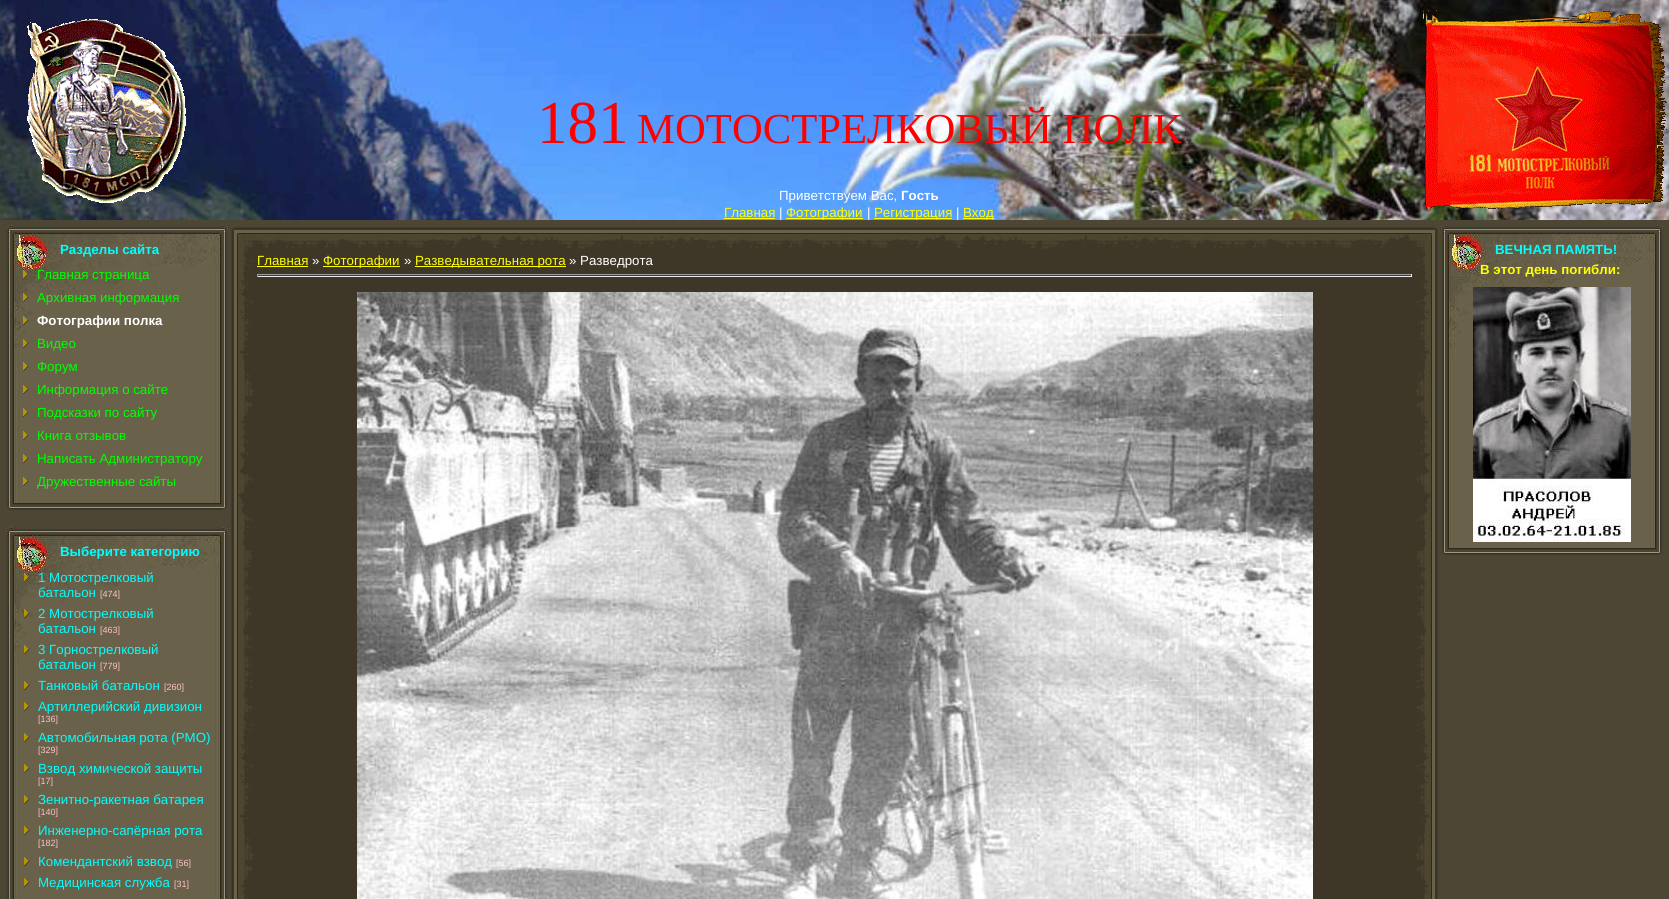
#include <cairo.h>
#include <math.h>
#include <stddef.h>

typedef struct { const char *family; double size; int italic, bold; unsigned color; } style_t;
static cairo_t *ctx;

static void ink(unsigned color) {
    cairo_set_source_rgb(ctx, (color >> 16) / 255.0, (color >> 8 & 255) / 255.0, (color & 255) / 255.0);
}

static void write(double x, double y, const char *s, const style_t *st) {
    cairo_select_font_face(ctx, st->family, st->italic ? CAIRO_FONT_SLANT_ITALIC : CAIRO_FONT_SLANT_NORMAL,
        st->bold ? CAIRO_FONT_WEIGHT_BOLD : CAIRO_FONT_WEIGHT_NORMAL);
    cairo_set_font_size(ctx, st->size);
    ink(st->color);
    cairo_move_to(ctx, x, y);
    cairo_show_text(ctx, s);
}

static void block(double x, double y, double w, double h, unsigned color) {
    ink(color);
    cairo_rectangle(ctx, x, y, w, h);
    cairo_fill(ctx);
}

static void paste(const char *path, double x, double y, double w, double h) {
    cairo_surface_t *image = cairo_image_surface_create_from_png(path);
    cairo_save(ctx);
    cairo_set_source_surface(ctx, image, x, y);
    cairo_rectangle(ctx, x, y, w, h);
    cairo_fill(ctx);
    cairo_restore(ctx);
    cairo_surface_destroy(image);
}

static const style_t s1 = {"Liberation Serif", 61, 0, 0, 0xff0000};
static const style_t s2 = {"Liberation Serif", 42.7, 0, 0, 0xff0000};
static const style_t s3 = {"Liberation Sans", 13.3, 0, 0, 0xffffff};
static const style_t s4 = {"Liberation Sans", 13.3, 0, 1, 0xffffff};
static const style_t s5 = {"Liberation Sans", 13.3, 0, 0, 0xffff00};
static const style_t s6 = {"Liberation Sans", 13.3, 0, 1, 0x00ffff};
static const style_t s7 = {"Liberation Sans", 13.3, 0, 0, 0x00ff00};
static const style_t s8 = {"Liberation Sans", 13.3, 0, 0, 0x00ffff};
static const style_t s9 = {"Liberation Sans", 9, 0, 0, 0xffc0cb};
static const style_t s10 = {"Liberation Sans", 13.3, 0, 1, 0xffff00};

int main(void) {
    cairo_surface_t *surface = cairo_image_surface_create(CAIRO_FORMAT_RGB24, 1669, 899);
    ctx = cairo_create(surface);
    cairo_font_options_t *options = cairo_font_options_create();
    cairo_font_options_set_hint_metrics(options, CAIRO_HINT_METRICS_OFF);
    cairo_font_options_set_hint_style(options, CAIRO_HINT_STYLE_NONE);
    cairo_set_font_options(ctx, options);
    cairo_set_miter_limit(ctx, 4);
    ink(0x4d4635);
    cairo_paint(ctx);
    paste("pic1.png", 0, 0, 1669, 220);
    paste("pic2.png", 27, 19, 159, 184);
    write(537, 143, "181", &s1);
    write(637, 143, "МОТОСТРЕЛКОВЫЙ ПОЛК", &s2);
    write(779, 200, "Приветствуем Вас,", &s3);
    write(901, 200, "Гость", &s4);
    write(724, 217, "Главная", &s5);
    block(724, 218, 51, 1, 0xffff00);
    write(779, 217, "|", &s3);
    block(786, 218, 77, 1, 0xffff00);
    write(786, 217, "Фотографии", &s5);
    write(867, 217, "|", &s3);
    block(874, 218, 78, 1, 0xffff00);
    write(874, 217, "Регистрация", &s5);
    write(956, 217, "|", &s3);
    block(963, 218, 31, 1, 0xffff00);
    write(963, 217, "Вход", &s5);
    paste("pic3.png", 1423, 10, 244, 200);
    paste("pic4.png", 5, 225, 224, 277);
    write(60, 254, "Разделы сайта", &s6);
    paste("pic5.png", 23, 270, 5, 9);
    write(37, 279, "Главная страница", &s7);
    paste("pic6.png", 23, 293, 6, 9);
    write(37, 302, "Архивная информация", &s7);
    paste("pic7.png", 23, 316, 6, 9);
    write(37, 325, "Фотографии полка", &s4);
    paste("pic8.png", 23, 339, 6, 9);
    write(37, 348, "Видео", &s7);
    paste("pic8.png", 23, 362, 6, 9);
    write(37, 371, "Форум", &s7);
    paste("pic8.png", 23, 385, 6, 9);
    write(37, 394, "Информация о сайте", &s7);
    paste("pic8.png", 23, 408, 6, 9);
    write(37, 417, "Подсказки по сайту", &s7);
    paste("pic8.png", 23, 431, 6, 9);
    write(37, 440, "Книга отзывов", &s7);
    paste("pic8.png", 23, 454, 6, 9);
    write(37, 463, "Написать Администратору", &s7);
    paste("pic8.png", 23, 477, 6, 9);
    write(37, 486, "Дружественные сайты", &s7);
    paste("pic9.png", 5, 502, 224, 10);
    paste("pic10.png", 5, 527, 224, 372);
    write(60, 556, "Выберите категорию", &s6);
    paste("pic11.png", 24, 573, 5, 9);
    write(38, 582, "1 Мотострелковый", &s8);
    write(38, 597, "батальон", &s8);
    write(100, 597, "[474]", &s9);
    paste("pic12.png", 24, 609, 6, 9);
    write(38, 618, "2 Мотострелковый", &s8);
    write(38, 633, "батальон", &s8);
    write(100, 633, "[463]", &s9);
    paste("pic8.png", 24, 645, 6, 9);
    write(38, 654, "3 Горнострелковый", &s8);
    write(38, 669, "батальон", &s8);
    write(100, 669, "[779]", &s9);
    paste("pic8.png", 24, 681, 6, 9);
    write(38, 690, "Танковый батальон", &s8);
    write(164, 690, "[260]", &s9);
    paste("pic8.png", 24, 702, 6, 9);
    write(38, 711, "Артиллерийский дивизион", &s8);
    write(38, 722, "[136]", &s9);
    paste("pic8.png", 24, 733, 6, 9);
    write(38, 742, "Автомобильная рота (РМО)", &s8);
    write(38, 753, "[329]", &s9);
    paste("pic8.png", 24, 764, 6, 9);
    write(38, 773, "Взвод химической защиты", &s8);
    write(38, 784, "[17]", &s9);
    paste("pic8.png", 24, 795, 6, 9);
    write(38, 804, "Зенитно-ракетная батарея", &s8);
    write(38, 815, "[140]", &s9);
    paste("pic8.png", 24, 826, 6, 9);
    write(38, 835, "Инженерно-сапёрная рота", &s8);
    write(38, 846, "[182]", &s9);
    paste("pic8.png", 24, 857, 6, 9);
    write(38, 866, "Комендантский взвод", &s8);
    write(176, 866, "[56]", &s9);
    paste("pic8.png", 24, 878, 6, 9);
    write(38, 887, "Медицинская служба", &s8);
    write(174, 887, "[31]", &s9);
    paste("pic13.png", 231, 227, 26, 26);
    paste("pic14.png", 257, 227, 1155, 26);
    paste("pic15.png", 1412, 227, 26, 26);
    paste("pic16.png", 231, 253, 26, 646);
    block(257, 253, 1155, 646, 0x3e3727);
    write(257, 265, "Главная", &s5);
    block(257, 266, 51, 1, 0xffff00);
    write(312, 265, "»", &s3);
    block(323, 266, 77, 1, 0xffff00);
    write(323, 265, "Фотографии", &s5);
    write(404, 265, "»", &s3);
    block(415, 266, 151, 1, 0xffff00);
    write(415, 265, "Разведывательная рота", &s5);
    write(569, 265, "» Разведрота", &s3);
    block(257, 274, 1155, 1, 0x9f9f9f);
    block(1411, 274, 1, 3, 0xeeeeee);
    block(257, 276, 1155, 1, 0xeeeeee);
    block(257, 274, 1, 3, 0x9f9f9f);
    paste("pic17.png", 357, 292, 956, 607);
    paste("pic18.png", 1412, 253, 26, 646);
    paste("pic19.png", 1440, 225, 224, 322);
    write(1495, 254, "ВЕЧНАЯ ПАМЯТЬ!", &s6);
    write(1480, 274, "В этот день погибли:", &s10);
    paste("pic20.png", 1473, 287, 158, 255);
    paste("pic9.png", 1440, 547, 224, 10);
    cairo_surface_write_to_png(surface, "screenshot.png");
    cairo_font_options_destroy(options);
    cairo_destroy(ctx);
    cairo_surface_destroy(surface);
    return 0;
}
